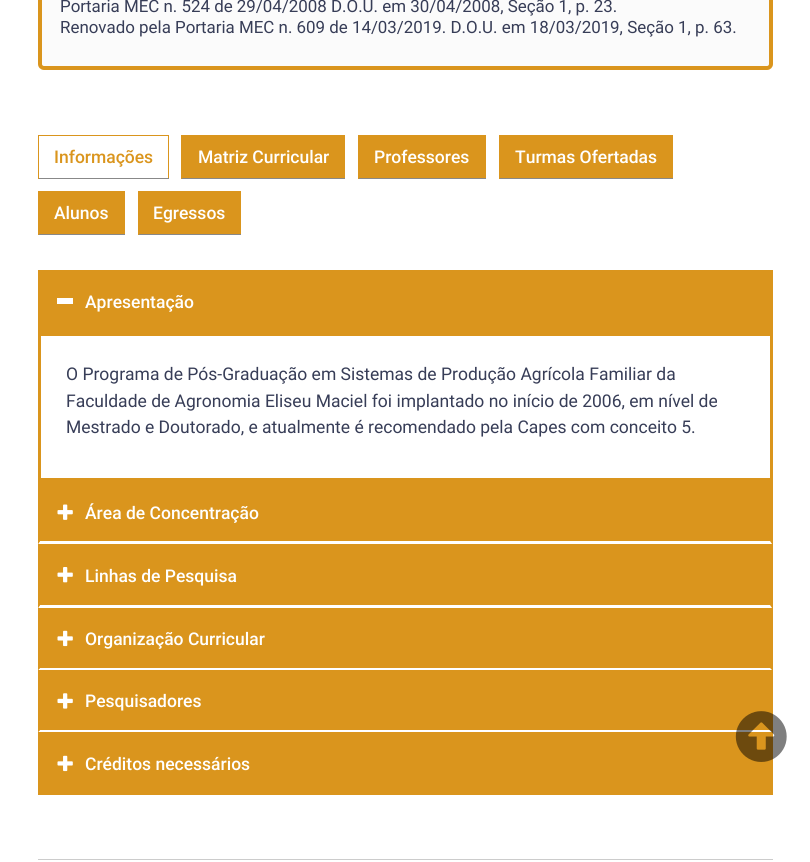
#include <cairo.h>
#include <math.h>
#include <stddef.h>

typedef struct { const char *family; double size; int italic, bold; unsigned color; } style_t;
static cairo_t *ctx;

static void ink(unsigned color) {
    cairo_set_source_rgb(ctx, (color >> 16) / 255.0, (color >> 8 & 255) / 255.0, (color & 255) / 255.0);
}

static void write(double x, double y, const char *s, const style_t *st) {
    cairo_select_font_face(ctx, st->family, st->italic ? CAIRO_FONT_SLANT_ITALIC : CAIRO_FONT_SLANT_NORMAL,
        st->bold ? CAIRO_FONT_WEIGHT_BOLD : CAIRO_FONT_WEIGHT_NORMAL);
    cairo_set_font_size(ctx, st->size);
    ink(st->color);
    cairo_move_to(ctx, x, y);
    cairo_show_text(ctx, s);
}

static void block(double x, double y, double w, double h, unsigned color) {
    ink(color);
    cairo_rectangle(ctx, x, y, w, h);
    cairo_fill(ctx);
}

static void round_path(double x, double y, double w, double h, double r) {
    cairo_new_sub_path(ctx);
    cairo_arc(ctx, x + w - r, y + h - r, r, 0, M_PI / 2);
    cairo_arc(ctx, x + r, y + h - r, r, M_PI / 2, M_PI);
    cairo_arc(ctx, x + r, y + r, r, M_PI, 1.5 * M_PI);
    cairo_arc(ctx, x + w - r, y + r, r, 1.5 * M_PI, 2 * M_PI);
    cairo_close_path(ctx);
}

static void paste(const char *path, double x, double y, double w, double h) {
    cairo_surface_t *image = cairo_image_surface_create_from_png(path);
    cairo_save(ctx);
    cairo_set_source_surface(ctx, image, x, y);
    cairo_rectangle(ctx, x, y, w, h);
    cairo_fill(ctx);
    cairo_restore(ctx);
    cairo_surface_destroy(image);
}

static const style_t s1 = {"Roboto", 16.9, 0, 0, 0x373d57};
static const style_t s2 = {"Roboto Medium", 17.5, 0, 0, 0xda951d};
static const style_t s3 = {"Roboto Medium", 17.5, 0, 0, 0xffffff};
static const style_t s4 = {"Roboto", 17.5, 0, 0, 0x373d57};

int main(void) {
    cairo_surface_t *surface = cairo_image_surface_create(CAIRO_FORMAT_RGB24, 810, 862);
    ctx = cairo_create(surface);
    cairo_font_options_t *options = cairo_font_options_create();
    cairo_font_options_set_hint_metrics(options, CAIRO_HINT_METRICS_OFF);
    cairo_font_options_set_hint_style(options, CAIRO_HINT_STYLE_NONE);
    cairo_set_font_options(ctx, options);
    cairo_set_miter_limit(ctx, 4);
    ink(0xffffff);
    cairo_paint(ctx);
    ink(0xfbfbfb);
    round_path(40, -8, 731, 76, 4);
    cairo_fill_preserve(ctx);
    ink(0xda951d);
    cairo_set_line_width(ctx, 4);
    cairo_stroke(ctx);
    write(60, 12, "Portaria MEC n. 524 de 29/04/2008 D.O.U. em 30/04/2008, Seção 1, p. 23.", &s1);
    write(60, 33, "Renovado pela Portaria MEC n. 609 de 14/03/2019. D.O.U. em 18/03/2019, Seção 1, p. 63.", &s1);
    block(38, 135, 131, 1, 0xda951d);
    block(168, 135, 1, 44, 0xda951d);
    block(38, 178, 131, 1, 0x888888);
    block(38, 135, 1, 44, 0xda951d);
    write(54, 163, "Informações", &s2);
    block(182, 135, 163, 43, 0xda951d);
    block(181, 178, 164, 1, 0x888888);
    block(181, 135, 1, 44, 0xda951d);
    write(198, 163, "Matriz Curricular", &s3);
    block(359, 135, 127, 43, 0xda951d);
    block(358, 178, 128, 1, 0x888888);
    block(358, 135, 1, 44, 0xda951d);
    write(374, 163, "Professores", &s3);
    block(500, 135, 173, 43, 0xda951d);
    block(499, 178, 174, 1, 0x888888);
    block(499, 135, 1, 44, 0xda951d);
    write(515, 163, "Turmas Ofertadas", &s3);
    block(39, 191, 86, 43, 0xda951d);
    block(38, 234, 87, 1, 0x888888);
    block(38, 191, 1, 44, 0xda951d);
    write(54, 219, "Alunos", &s3);
    block(139, 191, 102, 43, 0xda951d);
    block(138, 234, 103, 1, 0x888888);
    block(138, 191, 1, 44, 0xda951d);
    write(153, 219, "Egressos", &s3);
    block(38, 270, 735, 63, 0xda951d);
    block(57, 298, 16, 6, 0xffffff);
    write(85, 308, "Apresentação", &s3);
    cairo_rectangle(ctx, 39.5, 334.5, 732, 145);
    ink(0xda951d);
    cairo_set_line_width(ctx, 3);
    cairo_stroke(ctx);
    write(66, 380, "O Programa de Pós-Graduação em Sistemas de Produção Agrícola Familiar da", &s4);
    write(66, 407, "Faculdade de Agronomia Eliseu Maciel foi implantado no início de 2006, em nível de", &s4);
    write(66, 433, "Mestrado e Doutorado, e atualmente é recomendado pela Capes com conceito 5.", &s4);
    block(38, 481, 735, 314, 0xda951d);
    ink(0xffffff);
    cairo_new_path(ctx);
    cairo_move_to(ctx, 772, 544);
    cairo_line_to(ctx, 38, 544);
    cairo_line_to(ctx, 40, 541);
    cairo_line_to(ctx, 770, 541);
    cairo_close_path(ctx);
    cairo_fill(ctx);
    ink(0xda951d);
    cairo_new_path(ctx);
    cairo_move_to(ctx, 38, 544);
    cairo_line_to(ctx, 38, 481);
    cairo_line_to(ctx, 40, 484);
    cairo_line_to(ctx, 40, 541);
    cairo_close_path(ctx);
    cairo_fill(ctx);
    paste("pic1.png", 57, 504, 16, 16);
    write(85, 519, "Área de Concentração", &s3);
    cairo_new_path(ctx);
    cairo_move_to(ctx, 772, 608);
    cairo_line_to(ctx, 38, 608);
    cairo_line_to(ctx, 40, 605);
    cairo_line_to(ctx, 770, 605);
    cairo_close_path(ctx);
    cairo_fill(ctx);
    ink(0xda951d);
    cairo_new_path(ctx);
    cairo_move_to(ctx, 38, 608);
    cairo_line_to(ctx, 38, 544);
    cairo_line_to(ctx, 40, 546);
    cairo_line_to(ctx, 40, 605);
    cairo_close_path(ctx);
    cairo_fill(ctx);
    paste("pic2.png", 57, 567, 16, 16);
    write(85, 582, "Linhas de Pesquisa", &s3);
    cairo_new_path(ctx);
    cairo_move_to(ctx, 772, 670);
    cairo_line_to(ctx, 38, 670);
    cairo_line_to(ctx, 40, 668);
    cairo_line_to(ctx, 770, 668);
    cairo_close_path(ctx);
    cairo_fill(ctx);
    ink(0xda951d);
    cairo_new_path(ctx);
    cairo_move_to(ctx, 38, 670);
    cairo_line_to(ctx, 38, 608);
    cairo_line_to(ctx, 40, 610);
    cairo_line_to(ctx, 40, 668);
    cairo_close_path(ctx);
    cairo_fill(ctx);
    paste("pic3.png", 57, 630, 16, 17);
    write(85, 645, "Organização Curricular", &s3);
    cairo_new_path(ctx);
    cairo_move_to(ctx, 772, 732);
    cairo_line_to(ctx, 38, 732);
    cairo_line_to(ctx, 40, 730);
    cairo_line_to(ctx, 770, 730);
    cairo_close_path(ctx);
    cairo_fill(ctx);
    ink(0xda951d);
    cairo_new_path(ctx);
    cairo_move_to(ctx, 38, 732);
    cairo_line_to(ctx, 38, 670);
    cairo_line_to(ctx, 40, 672);
    cairo_line_to(ctx, 40, 730);
    cairo_close_path(ctx);
    cairo_fill(ctx);
    paste("pic4.png", 57, 693, 16, 16);
    write(85, 707, "Pesquisadores", &s3);
    paste("pic3.png", 57, 755, 16, 17);
    write(85, 770, "Créditos necessários", &s3);
    block(38, 859, 735, 1, 0xcccccc);
    paste("pic5.png", 735, 711, 52, 51);
    cairo_surface_write_to_png(surface, "screenshot.png");
    cairo_font_options_destroy(options);
    cairo_destroy(ctx);
    cairo_surface_destroy(surface);
    return 0;
}
